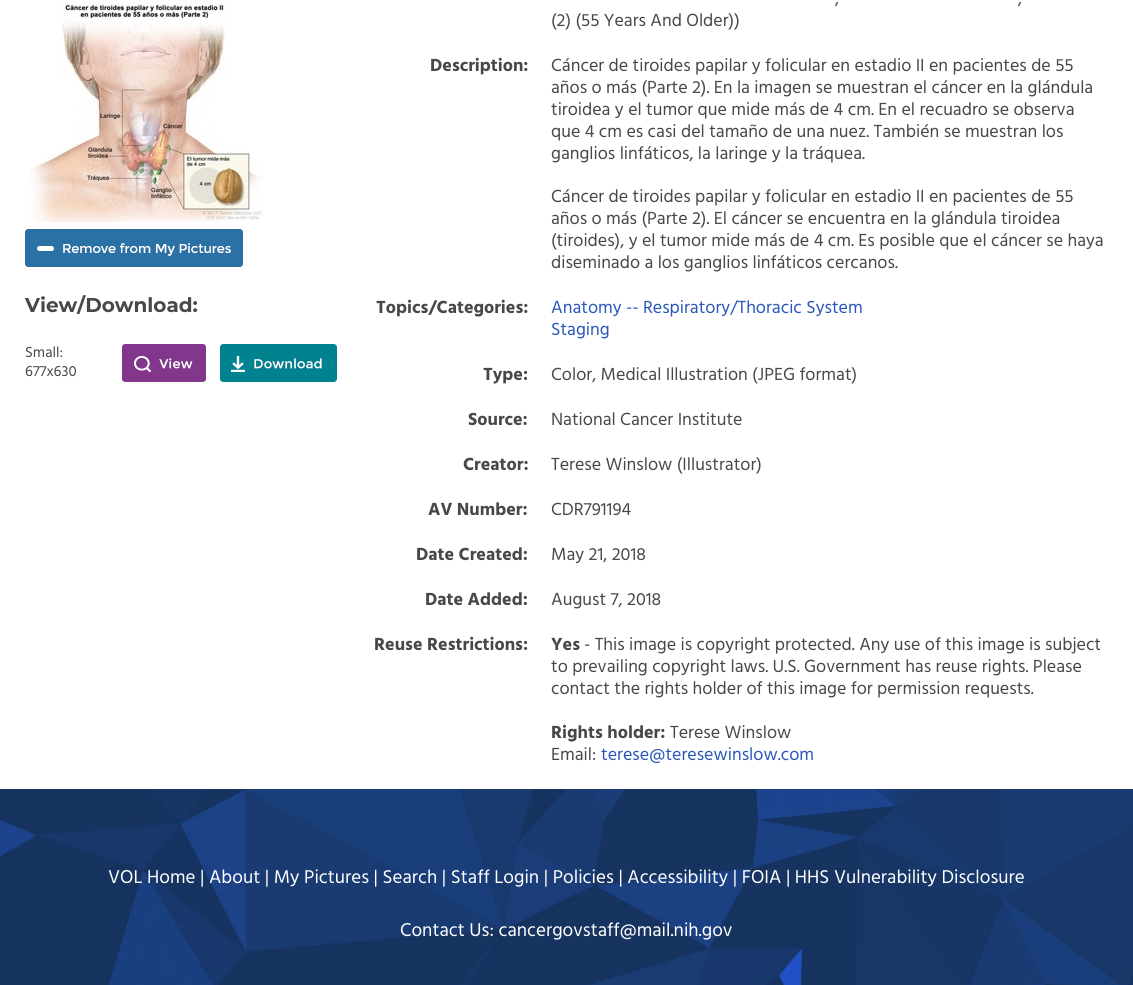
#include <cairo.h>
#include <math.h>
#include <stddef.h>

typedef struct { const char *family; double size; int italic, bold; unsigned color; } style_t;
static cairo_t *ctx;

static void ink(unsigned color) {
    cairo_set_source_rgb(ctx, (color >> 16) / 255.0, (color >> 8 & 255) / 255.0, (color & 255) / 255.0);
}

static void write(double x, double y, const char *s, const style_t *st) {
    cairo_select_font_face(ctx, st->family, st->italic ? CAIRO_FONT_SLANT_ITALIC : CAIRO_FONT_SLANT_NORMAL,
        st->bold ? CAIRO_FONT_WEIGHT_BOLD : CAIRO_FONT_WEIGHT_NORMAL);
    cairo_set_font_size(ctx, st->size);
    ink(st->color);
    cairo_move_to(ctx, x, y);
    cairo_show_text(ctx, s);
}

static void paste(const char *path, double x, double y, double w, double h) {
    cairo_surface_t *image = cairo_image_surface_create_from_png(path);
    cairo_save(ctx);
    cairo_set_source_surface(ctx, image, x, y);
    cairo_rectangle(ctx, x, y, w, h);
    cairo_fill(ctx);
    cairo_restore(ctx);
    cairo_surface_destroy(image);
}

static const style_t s1 = {"Montserrat", 20, 0, 1, 0x484848};
static const style_t s2 = {"Hind", 15, 0, 0, 0x484848};
static const style_t s3 = {"Hind", 18, 0, 0, 0x484848};
static const style_t s4 = {"Hind", 18, 0, 1, 0x484848};
static const style_t s5 = {"Hind", 18, 0, 0, 0x2a57b9};
static const style_t s6 = {"Hind", 19, 0, 0, 0xffffff};

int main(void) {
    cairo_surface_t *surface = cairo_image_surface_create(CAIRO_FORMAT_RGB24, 1133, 985);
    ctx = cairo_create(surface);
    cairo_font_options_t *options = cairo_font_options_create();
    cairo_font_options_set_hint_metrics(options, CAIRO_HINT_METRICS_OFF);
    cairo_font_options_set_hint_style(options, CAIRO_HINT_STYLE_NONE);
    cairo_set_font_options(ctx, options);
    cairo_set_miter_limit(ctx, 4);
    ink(0xffffff);
    cairo_paint(ctx);
    paste("pic1.png", 30, 0, 235, 222);
    paste("pic2.png", 25, 229, 218, 38);
    write(25, 312, "View/Download:", &s1);
    write(25, 357, "Small:", &s2);
    write(25, 376, "677x630", &s2);
    paste("pic3.png", 122, 344, 84, 38);
    paste("pic4.png", 220, 344, 117, 38);
    write(835, 4, ",", &s3);
    write(1018, 4, ",", &s3);
    write(551, 26, "(2) (55 Years And Older))", &s3);
    write(430, 71, "Description:", &s4);
    write(551, 71, "Cáncer de tiroides papilar y folicular en estadio II en pacientes de 55", &s3);
    write(551, 93, "años o más (Parte 2). En la imagen se muestran el cáncer en la glándula", &s3);
    write(551, 115, "tiroidea y el tumor que mide más de 4 cm. En el recuadro se observa", &s3);
    write(551, 137, "que 4 cm es casi del tamaño de una nuez. También se muestran los", &s3);
    write(551, 159, "ganglios linfáticos, la laringe y la tráquea.", &s3);
    write(551, 202, "Cáncer de tiroides papilar y folicular en estadio II en pacientes de 55", &s3);
    write(551, 224, "años o más (Parte 2). El cáncer se encuentra en la glándula tiroidea", &s3);
    write(551, 246, "(tiroides), y el tumor mide más de 4 cm. Es posible que el cáncer se haya", &s3);
    write(551, 268, "diseminado a los ganglios linfáticos cercanos.", &s3);
    write(376, 313, "Topics/Categories:", &s4);
    write(551, 313, "Anatomy -- Respiratory/Thoracic System", &s5);
    write(551, 335, "Staging", &s5);
    write(483, 380, "Type:", &s4);
    write(551, 380, "Color, Medical Illustration (JPEG format)", &s3);
    write(468, 425, "Source:", &s4);
    write(551, 425, "National Cancer Institute", &s3);
    write(463, 470, "Creator:", &s4);
    write(551, 470, "Terese Winslow (Illustrator)", &s3);
    write(428, 515, "AV Number:", &s4);
    write(551, 515, "CDR791194", &s3);
    write(416, 560, "Date Created:", &s4);
    write(551, 560, "May 21, 2018", &s3);
    write(425, 605, "Date Added:", &s4);
    write(551, 605, "August 7, 2018", &s3);
    write(374, 650, "Reuse Restrictions:", &s4);
    write(551, 650, "Yes", &s4);
    write(584, 650, "- This image is copyright protected. Any use of this image is subject", &s3);
    write(551, 672, "to prevailing copyright laws. U.S. Government has reuse rights. Please", &s3);
    write(551, 694, "contact the rights holder of this image for permission requests.", &s3);
    write(551, 738, "Rights holder:", &s4);
    write(670, 738, "Terese Winslow", &s3);
    write(551, 760, "Email:", &s3);
    write(601, 760, "terese@teresewinslow.com", &s5);
    paste("pic5.png", 0, 789, 1133, 196);
    write(108, 883, "VOL Home | About | My Pictures | Search | Staff Login | Policies | Accessibility | FOIA | HHS Vulnerability Disclosure", &s6);
    write(400, 936, "Contact Us: cancergovstaff@mail.nih.gov", &s6);
    cairo_surface_write_to_png(surface, "screenshot.png");
    cairo_font_options_destroy(options);
    cairo_destroy(ctx);
    cairo_surface_destroy(surface);
    return 0;
}
